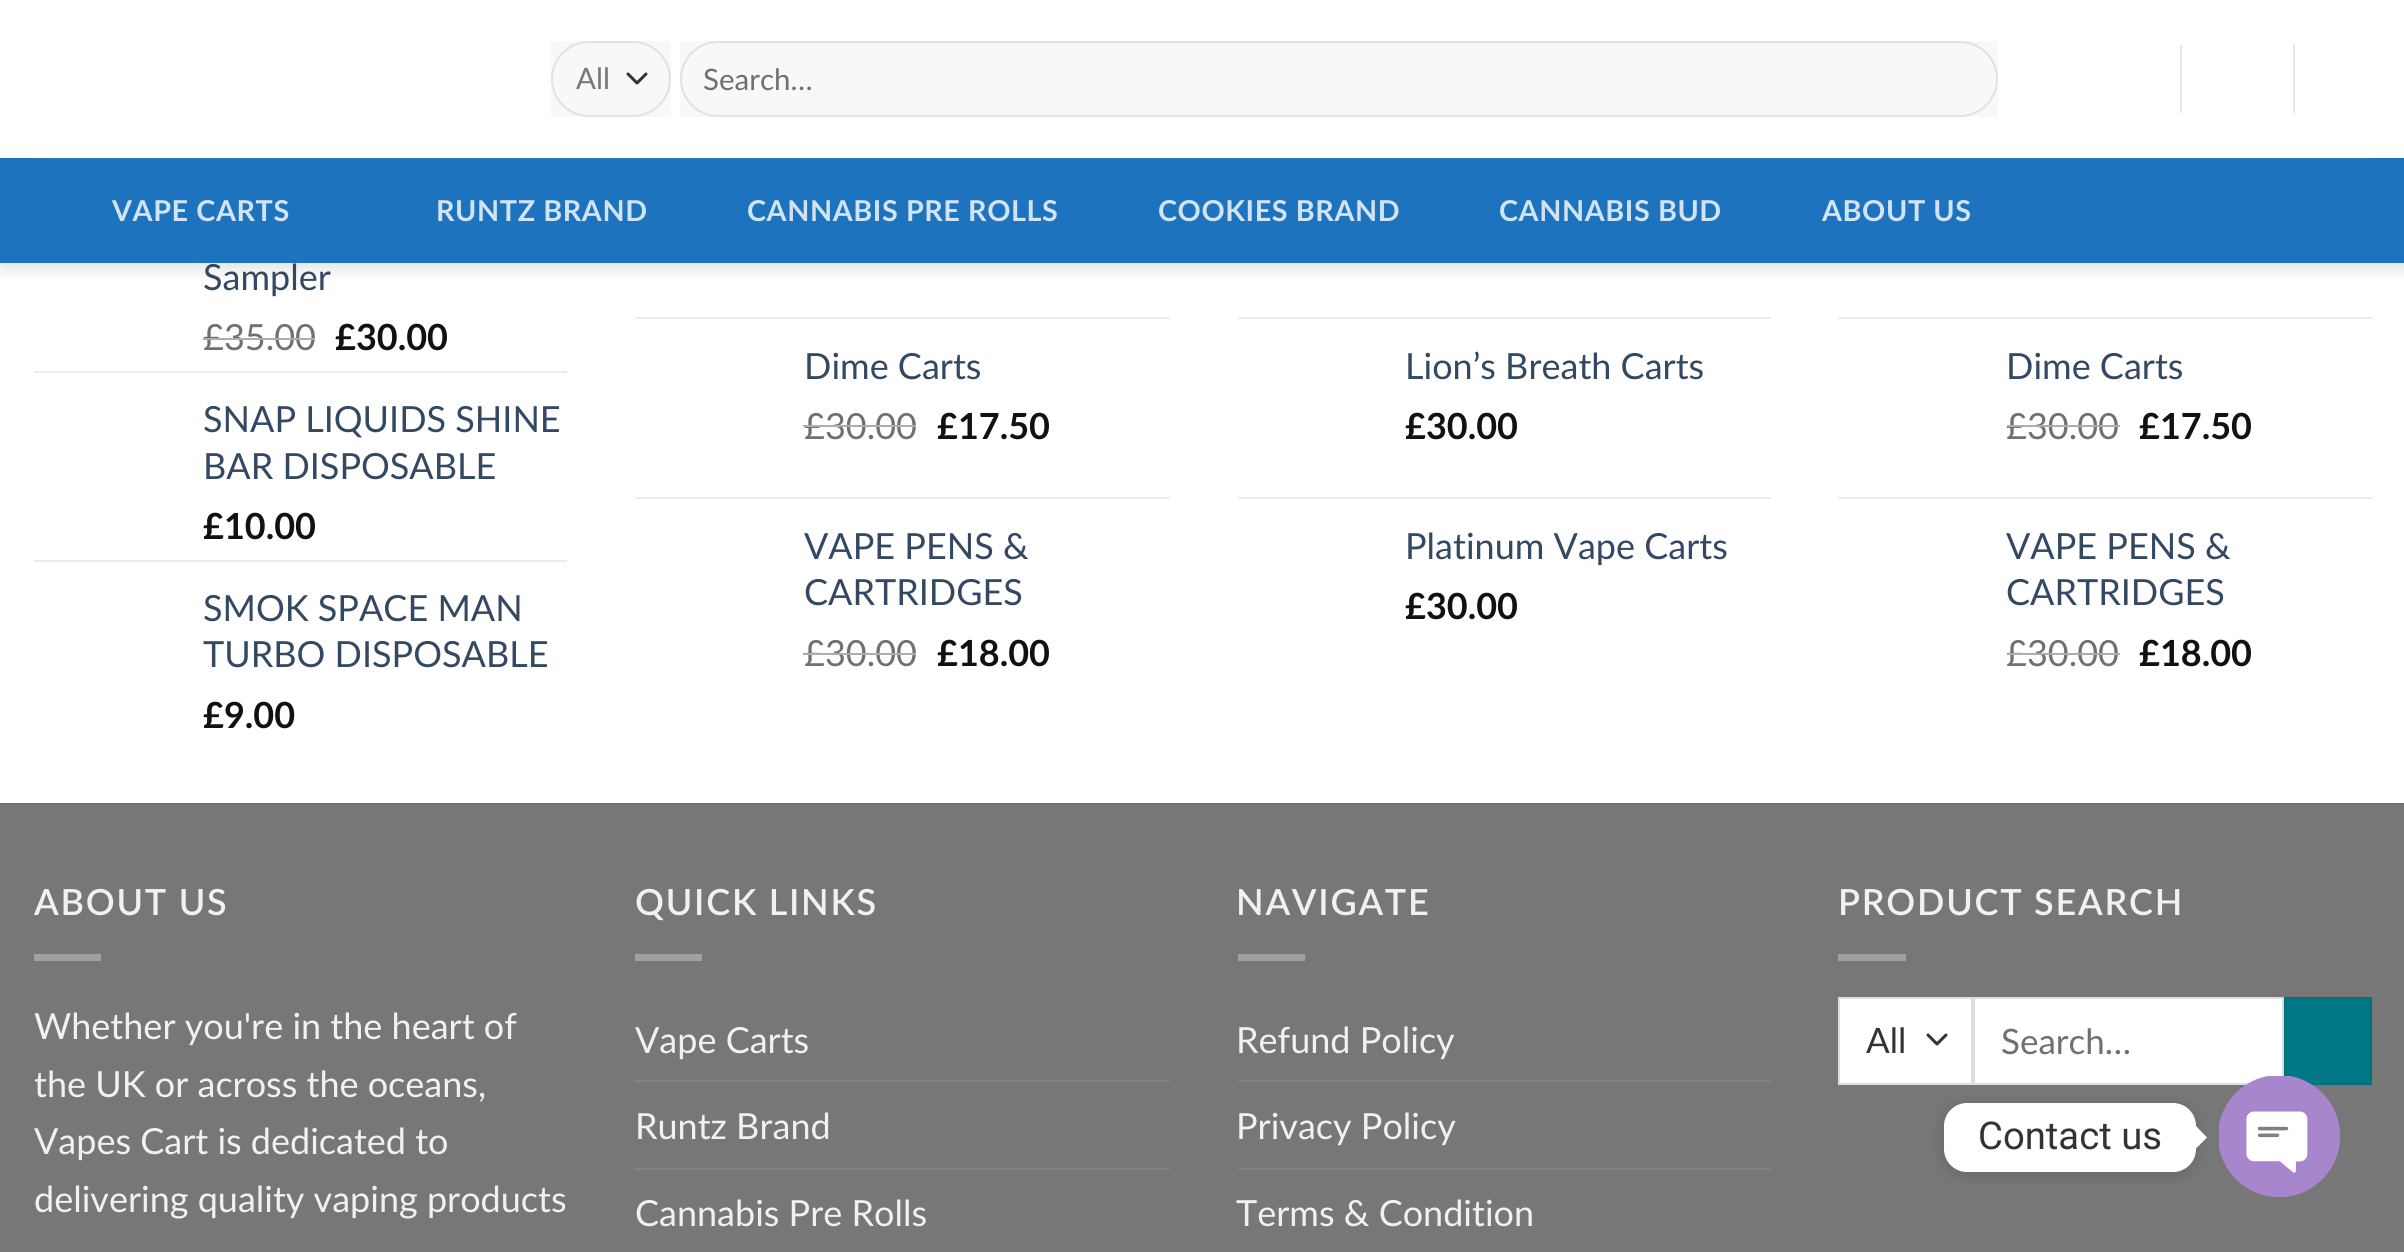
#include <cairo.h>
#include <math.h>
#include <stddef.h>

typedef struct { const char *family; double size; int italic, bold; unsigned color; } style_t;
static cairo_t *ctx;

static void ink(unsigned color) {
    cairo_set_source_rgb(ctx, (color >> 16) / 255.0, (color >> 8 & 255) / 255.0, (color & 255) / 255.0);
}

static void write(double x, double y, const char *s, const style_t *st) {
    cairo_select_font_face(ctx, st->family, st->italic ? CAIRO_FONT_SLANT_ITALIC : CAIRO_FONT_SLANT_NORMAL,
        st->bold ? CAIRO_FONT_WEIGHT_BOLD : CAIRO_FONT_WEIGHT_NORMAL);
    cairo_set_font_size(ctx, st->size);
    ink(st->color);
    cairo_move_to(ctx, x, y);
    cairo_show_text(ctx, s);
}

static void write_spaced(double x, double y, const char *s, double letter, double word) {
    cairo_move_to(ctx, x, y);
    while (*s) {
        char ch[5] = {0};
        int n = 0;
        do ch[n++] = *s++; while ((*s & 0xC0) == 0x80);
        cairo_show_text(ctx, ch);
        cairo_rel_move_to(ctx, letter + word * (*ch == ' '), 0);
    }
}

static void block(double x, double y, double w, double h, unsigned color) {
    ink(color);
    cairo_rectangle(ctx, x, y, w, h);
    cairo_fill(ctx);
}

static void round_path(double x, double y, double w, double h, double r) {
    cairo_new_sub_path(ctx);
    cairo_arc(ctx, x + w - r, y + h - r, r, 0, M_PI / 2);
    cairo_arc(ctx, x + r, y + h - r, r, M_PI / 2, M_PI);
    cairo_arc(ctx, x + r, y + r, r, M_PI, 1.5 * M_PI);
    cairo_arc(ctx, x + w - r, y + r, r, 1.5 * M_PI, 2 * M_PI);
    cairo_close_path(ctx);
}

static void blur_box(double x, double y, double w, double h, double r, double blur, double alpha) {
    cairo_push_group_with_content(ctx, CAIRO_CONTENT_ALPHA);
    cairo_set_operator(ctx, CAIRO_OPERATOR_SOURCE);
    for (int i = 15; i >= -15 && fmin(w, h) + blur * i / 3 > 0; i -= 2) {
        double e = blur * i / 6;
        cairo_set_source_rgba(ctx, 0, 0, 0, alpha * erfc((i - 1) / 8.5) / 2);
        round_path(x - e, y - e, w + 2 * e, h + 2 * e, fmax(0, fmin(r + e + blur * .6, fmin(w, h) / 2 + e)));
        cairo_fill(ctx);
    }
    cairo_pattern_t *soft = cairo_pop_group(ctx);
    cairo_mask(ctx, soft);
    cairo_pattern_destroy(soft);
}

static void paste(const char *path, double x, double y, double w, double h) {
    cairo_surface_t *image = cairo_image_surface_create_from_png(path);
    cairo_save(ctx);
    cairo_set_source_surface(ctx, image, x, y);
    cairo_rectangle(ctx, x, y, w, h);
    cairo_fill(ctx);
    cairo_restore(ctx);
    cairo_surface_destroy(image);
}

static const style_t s1 = {"Lato", 29.5, 0, 0, 0x777777};
static const style_t s2 = {"Lato", 29.5, 0, 0, 0x707070};
static const style_t s3 = {"Lato", 36, 0, 0, 0x334862};
static const style_t s4 = {"Lato", 36, 0, 0, 0x707070};
static const style_t s5 = {"Lato", 36, 0, 1, 0x111111};
static const style_t s6 = {"Lato", 36, 0, 0, 0xf1f1f1};
static const style_t s7 = {"Lato", 35, 0, 0, 0x333333};
static const style_t s8 = {"Lato", 35, 0, 0, 0x707070};
static const style_t s9 = {"Roboto", 38.25, 0, 0, 0x333333};

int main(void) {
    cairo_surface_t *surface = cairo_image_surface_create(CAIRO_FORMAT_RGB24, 2404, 1252);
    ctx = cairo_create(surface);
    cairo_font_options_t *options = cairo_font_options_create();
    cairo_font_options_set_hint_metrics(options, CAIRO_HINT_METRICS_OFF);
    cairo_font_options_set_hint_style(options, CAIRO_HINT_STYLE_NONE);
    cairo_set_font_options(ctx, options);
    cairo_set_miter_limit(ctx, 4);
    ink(0xffffff);
    cairo_paint(ctx);
    cairo_save(ctx);
    cairo_rectangle(ctx, 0, 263, 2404, 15);
    cairo_clip(ctx);
    ink(0x000000);
    blur_box(2, 2, 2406, 264, 0, 11, 0.15);
    cairo_restore(ctx);
    cairo_set_source_rgba(ctx, 0, 0, 0, 0.03);
    cairo_rectangle(ctx, 551, 41, 120, 76);
    cairo_fill(ctx);
    cairo_new_path(ctx);
    cairo_move_to(ctx, 628, 74);
    cairo_line_to(ctx, 637, 83);
    cairo_line_to(ctx, 646, 74);
    ink(0x333333);
    cairo_set_line_width(ctx, 3);
    cairo_set_line_cap(ctx, CAIRO_LINE_CAP_ROUND);
    cairo_set_line_join(ctx, CAIRO_LINE_JOIN_ROUND);
    cairo_stroke(ctx);
    round_path(552, 42, 118, 74, 37);
    cairo_set_source_rgba(ctx, 0, 0, 0, 0.09);
    cairo_set_line_width(ctx, 2);
    cairo_set_line_cap(ctx, CAIRO_LINE_CAP_BUTT);
    cairo_set_line_join(ctx, CAIRO_LINE_JOIN_MITER);
    cairo_stroke(ctx);
    write(576, 89, "All", &s1);
    cairo_set_source_rgba(ctx, 0, 0, 0, 0.03);
    cairo_rectangle(ctx, 680, 41, 1318, 76);
    cairo_fill(ctx);
    round_path(681, 42, 1316, 74, 37);
    cairo_set_source_rgba(ctx, 0, 0, 0, 0.09);
    cairo_stroke(ctx);
    write(703, 90, "Search…", &s2);
    block(2180, 45, 2, 68, 0xe6e6e6);
    block(2293, 45, 2, 68, 0xe6e6e6);
    block(0, 158, 2404, 105, 0x1e73be);
    block(34, 158, 2338, 2, 0x2773b7);
    cairo_select_font_face(ctx, "Lato", CAIRO_FONT_SLANT_NORMAL, CAIRO_FONT_WEIGHT_BOLD);
    cairo_set_font_size(ctx, 28.75);
    ink(0xd2e3f2);
    write_spaced(112, 221, "VAPE CARTS", 0.6, 0);
    write_spaced(436, 221, "RUNTZ BRAND", 0.6, 0);
    write_spaced(747, 221, "CANNABIS PRE ROLLS", 0.6, 0);
    write_spaced(1158, 221, "COOKIES BRAND", 0.6, 0);
    write_spaced(1499, 221, "CANNABIS BUD", 0.6, 0);
    write_spaced(1822, 221, "ABOUT US", 0.6, 0);
    write(203, 290, "Sampler", &s3);
    write(203, 350, "£35.00", &s4);
    block(203, 338, 112, 2, 0xadadad);
    write(335, 350, "£30.00", &s5);
    block(34, 371, 533, 2, 0xececec);
    write(203, 432, "SNAP LIQUIDS SHINE", &s3);
    write(203, 479, "BAR DISPOSABLE", &s3);
    write(203, 539, "£10.00", &s5);
    block(34, 560, 533, 2, 0xececec);
    write(203, 621, "SMOK SPACE MAN", &s3);
    write(203, 667, "TURBO DISPOSABLE", &s3);
    write(203, 728, "£9.00", &s5);
    block(635, 317, 535, 2, 0xececec);
    write(804, 379, "Dime Carts", &s3);
    write(804, 439, "£30.00", &s4);
    block(803, 425, 113, 2, 0xadadad);
    write(937, 439, "£17.50", &s5);
    block(635, 497, 535, 2, 0xececec);
    write(804, 559, "VAPE PENS &", &s3);
    write(804, 605, "CARTRIDGES", &s3);
    write(804, 666, "£30.00", &s4);
    block(803, 653, 113, 2, 0xadadad);
    write(937, 666, "£18.00", &s5);
    block(1238, 317, 533, 2, 0xececec);
    write(1405, 379, "Lion’s Breath Carts", &s3);
    write(1405, 439, "£30.00", &s5);
    block(1238, 497, 533, 2, 0xececec);
    write(1405, 559, "Platinum Vape Carts", &s3);
    write(1405, 619, "£30.00", &s5);
    block(1838, 317, 534, 2, 0xececec);
    write(2006, 379, "Dime Carts", &s3);
    write(2006, 439, "£30.00", &s4);
    block(2007, 425, 113, 2, 0xadadad);
    write(2139, 439, "£17.50", &s5);
    block(1838, 497, 534, 2, 0xececec);
    write(2006, 559, "VAPE PENS &", &s3);
    write(2006, 605, "CARTRIDGES", &s3);
    write(2006, 666, "£30.00", &s4);
    block(2007, 653, 113, 2, 0xadadad);
    write(2139, 666, "£18.00", &s5);
    block(0, 805, 2404, 447, 0x777777);
    block(0, 803, 2404, 2, 0x717171);
    cairo_select_font_face(ctx, "Lato SemiBold", CAIRO_FONT_SLANT_NORMAL, CAIRO_FONT_WEIGHT_NORMAL);
    ink(0xf1f1f1);
    write_spaced(34, 915, "ABOUT US", 1.75, 0);
    block(34, 954, 67, 7, 0xa0a0a0);
    write(34, 1039, "Whether you're in the heart of", &s6);
    write(34, 1097, "the UK or across the oceans,", &s6);
    write(34, 1154, "Vapes Cart is dedicated to", &s6);
    write(34, 1212, "delivering quality vaping products", &s6);
    cairo_select_font_face(ctx, "Lato SemiBold", CAIRO_FONT_SLANT_NORMAL, CAIRO_FONT_WEIGHT_NORMAL);
    write_spaced(635, 915, "QUICK LINKS", 1.75, 0);
    block(635, 954, 67, 7, 0xa0a0a0);
    write(635, 1053, "Vape Carts", &s6);
    block(635, 1080, 535, 2, 0x828282);
    write(635, 1139, "Runtz Brand", &s6);
    block(635, 1168, 535, 2, 0x828282);
    write(635, 1226, "Cannabis Pre Rolls", &s6);
    cairo_select_font_face(ctx, "Lato SemiBold", CAIRO_FONT_SLANT_NORMAL, CAIRO_FONT_WEIGHT_NORMAL);
    write_spaced(1236, 915, "NAVIGATE", 1.75, 0);
    block(1238, 954, 67, 7, 0xa0a0a0);
    write(1236, 1053, "Refund Policy", &s6);
    block(1238, 1080, 533, 2, 0x828282);
    write(1236, 1139, "Privacy Policy", &s6);
    block(1238, 1168, 533, 2, 0x828282);
    write(1236, 1226, "Terms & Condition", &s6);
    cairo_select_font_face(ctx, "Lato SemiBold", CAIRO_FONT_SLANT_NORMAL, CAIRO_FONT_WEIGHT_NORMAL);
    write_spaced(1838, 915, "PRODUCT SEARCH", 1.75, 0);
    block(1838, 954, 68, 7, 0xa0a0a0);
    block(1840, 999, 131, 84, 0xffffff);
    cairo_new_path(ctx);
    cairo_move_to(ctx, 1928, 1035);
    cairo_line_to(ctx, 1937, 1044);
    cairo_line_to(ctx, 1946, 1035);
    ink(0x333333);
    cairo_set_line_width(ctx, 3);
    cairo_set_line_cap(ctx, CAIRO_LINE_CAP_ROUND);
    cairo_set_line_join(ctx, CAIRO_LINE_JOIN_ROUND);
    cairo_stroke(ctx);
    cairo_rectangle(ctx, 1839, 998, 133, 86);
    ink(0xdddddd);
    cairo_set_line_width(ctx, 2);
    cairo_set_line_cap(ctx, CAIRO_LINE_CAP_BUTT);
    cairo_set_line_join(ctx, CAIRO_LINE_JOIN_MITER);
    cairo_stroke(ctx);
    write(1866, 1053, "All", &s7);
    ink(0xffffff);
    cairo_rectangle(ctx, 1974, 998, 309, 86);
    cairo_fill_preserve(ctx);
    ink(0xdddddd);
    cairo_stroke(ctx);
    write(2001, 1054, "Search…", &s8);
    ink(0x007784);
    cairo_rectangle(ctx, 2285, 998, 86, 86);
    cairo_fill_preserve(ctx);
    ink(0x00717d);
    cairo_stroke(ctx);
    cairo_save(ctx);
    cairo_set_fill_rule(ctx, CAIRO_FILL_RULE_EVEN_ODD);
    cairo_new_path(ctx);
    cairo_move_to(ctx, 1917, 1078);
    cairo_line_to(ctx, 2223, 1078);
    cairo_line_to(ctx, 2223, 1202);
    cairo_line_to(ctx, 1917, 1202);
    cairo_close_path(ctx);
    cairo_move_to(ctx, 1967, 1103);
    cairo_line_to(ctx, 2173, 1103);
    cairo_curve_to(ctx, 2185.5, 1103, 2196, 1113.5, 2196, 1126);
    cairo_line_to(ctx, 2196, 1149);
    cairo_curve_to(ctx, 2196, 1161.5, 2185.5, 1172, 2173, 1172);
    cairo_line_to(ctx, 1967, 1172);
    cairo_curve_to(ctx, 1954.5, 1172, 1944, 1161.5, 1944, 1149);
    cairo_line_to(ctx, 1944, 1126);
    cairo_curve_to(ctx, 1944, 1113.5, 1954.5, 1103, 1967, 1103);
    cairo_close_path(ctx);
    cairo_clip(ctx);
    ink(0x000000);
    blur_box(1944, 1105, 252, 70, 23, 8.5, 0.15);
    cairo_restore(ctx);
    ink(0xffffff);
    round_path(1944, 1103, 252, 69, 23);
    cairo_fill(ctx);
    write(1978, 1149, "Contact us", &s9);
    ink(0xffffff);
    cairo_new_path(ctx);
    cairo_move_to(ctx, 2196, 1148.5);
    cairo_line_to(ctx, 2196, 1126);
    cairo_line_to(ctx, 2207, 1137.5);
    cairo_close_path(ctx);
    cairo_fill(ctx);
    ink(0xa886cd);
    cairo_arc(ctx, 2279.5, 1136.5, 60.5, 0, 2 * M_PI);
    cairo_fill(ctx);
    paste("pic1.png", 2219, 1076, 121, 121);
    cairo_surface_write_to_png(surface, "screenshot.png");
    cairo_font_options_destroy(options);
    cairo_destroy(ctx);
    cairo_surface_destroy(surface);
    return 0;
}
